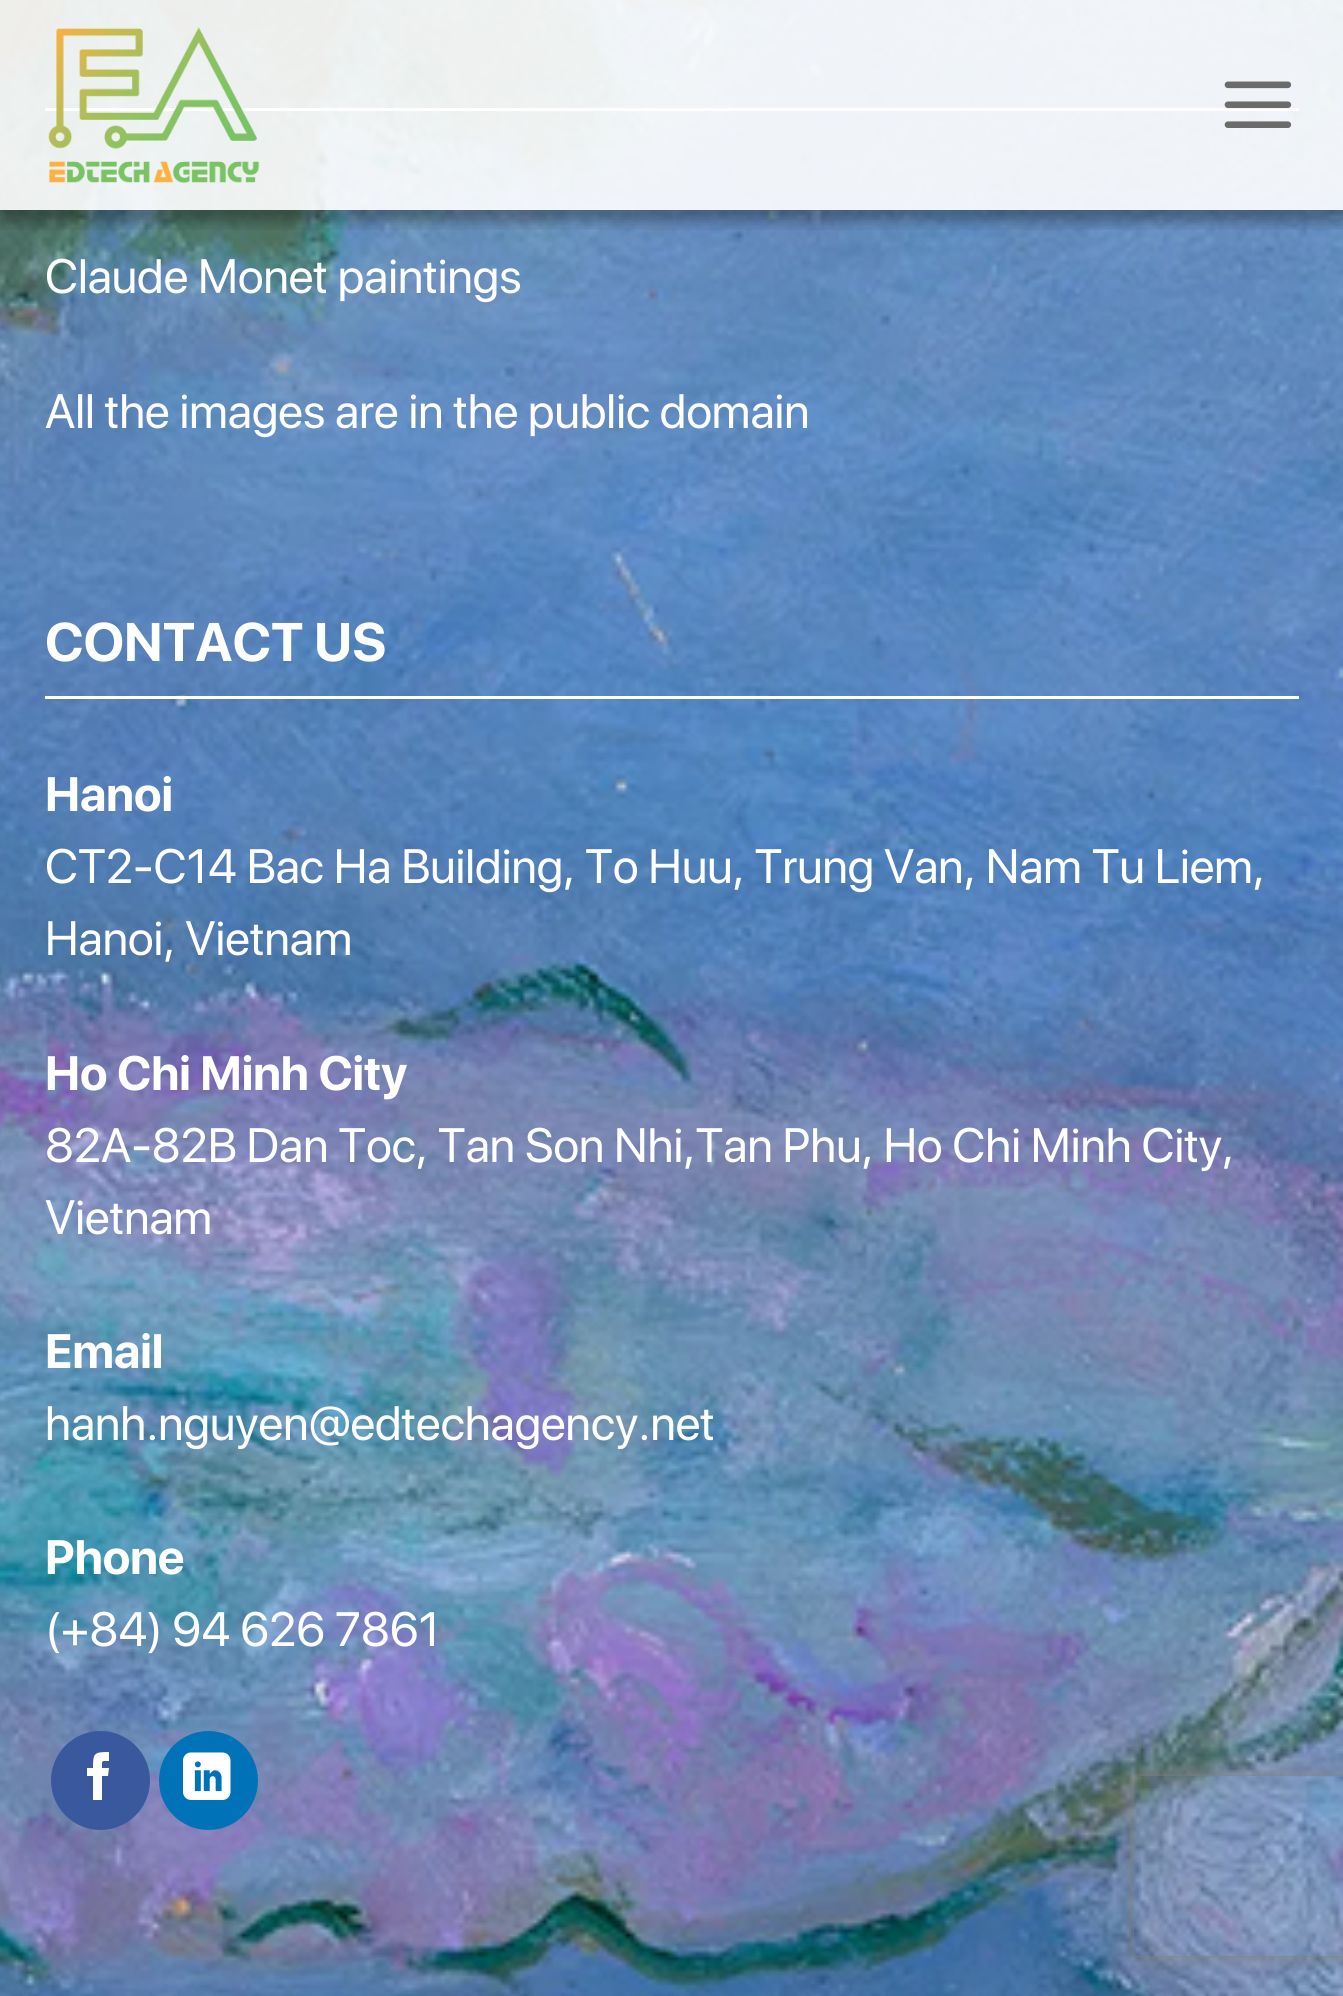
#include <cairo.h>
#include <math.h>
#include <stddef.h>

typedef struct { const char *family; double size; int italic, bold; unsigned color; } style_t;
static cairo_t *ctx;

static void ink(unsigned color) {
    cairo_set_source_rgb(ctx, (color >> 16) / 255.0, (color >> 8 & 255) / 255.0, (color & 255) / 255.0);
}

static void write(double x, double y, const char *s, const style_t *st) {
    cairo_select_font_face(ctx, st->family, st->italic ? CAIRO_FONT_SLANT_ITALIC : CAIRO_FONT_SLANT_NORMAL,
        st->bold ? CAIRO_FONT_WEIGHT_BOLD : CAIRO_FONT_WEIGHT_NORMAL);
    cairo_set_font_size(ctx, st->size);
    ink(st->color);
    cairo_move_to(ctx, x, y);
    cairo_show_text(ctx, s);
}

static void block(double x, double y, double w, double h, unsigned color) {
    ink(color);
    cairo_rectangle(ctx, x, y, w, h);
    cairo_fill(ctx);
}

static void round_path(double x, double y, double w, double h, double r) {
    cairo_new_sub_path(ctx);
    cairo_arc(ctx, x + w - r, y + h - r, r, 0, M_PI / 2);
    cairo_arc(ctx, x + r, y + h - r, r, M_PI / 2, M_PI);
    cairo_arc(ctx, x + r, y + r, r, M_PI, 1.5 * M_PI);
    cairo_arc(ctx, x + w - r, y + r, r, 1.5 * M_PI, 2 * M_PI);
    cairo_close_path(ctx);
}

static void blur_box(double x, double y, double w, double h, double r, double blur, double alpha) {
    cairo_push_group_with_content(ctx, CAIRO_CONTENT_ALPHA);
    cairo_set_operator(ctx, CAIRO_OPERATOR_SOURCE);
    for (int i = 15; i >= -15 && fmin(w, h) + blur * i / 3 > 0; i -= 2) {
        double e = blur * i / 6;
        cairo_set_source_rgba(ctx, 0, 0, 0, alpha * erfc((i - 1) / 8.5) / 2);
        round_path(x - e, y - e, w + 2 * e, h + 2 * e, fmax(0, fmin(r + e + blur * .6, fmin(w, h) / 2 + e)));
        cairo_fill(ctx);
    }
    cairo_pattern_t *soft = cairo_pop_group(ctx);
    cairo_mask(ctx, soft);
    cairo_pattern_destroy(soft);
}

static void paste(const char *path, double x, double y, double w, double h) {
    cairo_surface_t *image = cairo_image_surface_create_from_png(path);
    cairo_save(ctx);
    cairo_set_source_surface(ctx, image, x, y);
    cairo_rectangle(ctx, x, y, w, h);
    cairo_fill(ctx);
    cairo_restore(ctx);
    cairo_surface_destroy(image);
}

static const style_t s1 = {"SF Pro Display", 48, 0, 0, 0xffffff};
static const style_t s2 = {"SF Pro Display", 54, 0, 1, 0xffffff};
static const style_t s3 = {"SF Pro Display", 48, 0, 1, 0xffffff};

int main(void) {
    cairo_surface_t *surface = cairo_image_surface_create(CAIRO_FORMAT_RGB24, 1343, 1996);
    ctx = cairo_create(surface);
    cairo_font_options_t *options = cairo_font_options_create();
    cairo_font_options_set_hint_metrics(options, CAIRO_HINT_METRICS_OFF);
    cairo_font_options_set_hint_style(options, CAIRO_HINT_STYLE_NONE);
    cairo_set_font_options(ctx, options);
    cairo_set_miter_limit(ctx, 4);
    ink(0xffffff);
    cairo_paint(ctx);
    paste("pic3.png", 0, 0, 1343, 1996);
    block(45, 108, 1254, 3, 0xffffff);
    cairo_save(ctx);
    cairo_rectangle(ctx, 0, 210, 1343, 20);
    cairo_clip(ctx);
    ink(0x000000);
    blur_box(3, 3, 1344, 210, 0, 15, 0.15);
    cairo_restore(ctx);
    cairo_set_source_rgba(ctx, 1, 1, 1, 0.9);
    cairo_rectangle(ctx, 0, 0, 1343, 210);
    cairo_fill(ctx);
    cairo_save(ctx);
    cairo_rectangle(ctx, 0, 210, 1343, 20);
    cairo_clip(ctx);
    ink(0x000000);
    blur_box(0, 12, 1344, 210, 0, 6, 0.25);
    cairo_restore(ctx);
    paste("pic1.png", 48, 27, 212, 156);
    paste("pic2.png", 1224, 81, 68, 47);
    write(45, 293, "Claude Monet paintings", &s1);
    write(45, 428, "All the images are in the public domain", &s1);
    write(45, 661, "CONTACT US", &s2);
    block(45, 696, 1254, 3, 0xffffff);
    write(45, 811, "Hanoi", &s3);
    write(45, 883, "CT2-C14 Bac Ha Building, To Huu, Trung Van, Nam Tu Liem,", &s1);
    write(45, 955, "Hanoi, Vietnam", &s1);
    write(45, 1090, "Ho Chi Minh City", &s3);
    write(45, 1162, "82A-82B Dan Toc, Tan Son Nhi,Tan Phu, Ho Chi Minh City,", &s1);
    write(45, 1234, "Vietnam", &s1);
    write(45, 1368, "Email", &s3);
    write(45, 1440, "hanh.nguyen@edtechagency.net", &s1);
    write(45, 1574, "Phone", &s3);
    write(45, 1646, "(+84) 94 626 7861", &s1);
    ink(0x3a589d);
    cairo_new_path(ctx);
    cairo_arc(ctx, 100.5, 1780.5, 48, 0, 2 * M_PI);
    cairo_fill_preserve(ctx);
    cairo_set_line_width(ctx, 3);
    cairo_stroke(ctx);
    ink(0xffffff);
    cairo_new_path(ctx);
    cairo_move_to(ctx, 102, 1800);
    cairo_line_to(ctx, 93, 1800);
    cairo_line_to(ctx, 93, 1776);
    cairo_line_to(ctx, 87, 1776);
    cairo_line_to(ctx, 87, 1768);
    cairo_line_to(ctx, 93, 1768);
    cairo_curve_to(ctx, 93, 1753, 94, 1752, 109, 1752);
    cairo_line_to(ctx, 109, 1761);
    cairo_curve_to(ctx, 101, 1761, 102, 1760, 102, 1768);
    cairo_line_to(ctx, 109, 1768);
    cairo_line_to(ctx, 108, 1776);
    cairo_line_to(ctx, 102, 1776);
    cairo_close_path(ctx);
    cairo_fill(ctx);
    ink(0x0072b7);
    cairo_arc(ctx, 208.5, 1780.5, 48, 0, 2 * M_PI);
    cairo_fill_preserve(ctx);
    cairo_stroke(ctx);
    paste("pic4.png", 183, 1752, 48, 48);
    cairo_save(ctx);
    cairo_set_fill_rule(ctx, CAIRO_FILL_RULE_EVEN_ODD);
    cairo_new_path(ctx);
    cairo_move_to(ctx, 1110, 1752);
    cairo_line_to(ctx, 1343, 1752);
    cairo_line_to(ctx, 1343, 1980);
    cairo_line_to(ctx, 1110, 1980);
    cairo_close_path(ctx);
    cairo_move_to(ctx, 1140, 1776);
    cairo_line_to(ctx, 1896, 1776);
    cairo_curve_to(ctx, 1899.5, 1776, 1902, 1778.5, 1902, 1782);
    cairo_line_to(ctx, 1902, 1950);
    cairo_curve_to(ctx, 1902, 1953.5, 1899.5, 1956, 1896, 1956);
    cairo_line_to(ctx, 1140, 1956);
    cairo_curve_to(ctx, 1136.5, 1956, 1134, 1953.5, 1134, 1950);
    cairo_line_to(ctx, 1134, 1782);
    cairo_curve_to(ctx, 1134, 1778.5, 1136.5, 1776, 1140, 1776);
    cairo_close_path(ctx);
    cairo_clip(ctx);
    ink(0x808080);
    blur_box(1134, 1776, 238, 180, 6, 7.5, 1);
    cairo_restore(ctx);
    cairo_surface_write_to_png(surface, "screenshot.png");
    cairo_font_options_destroy(options);
    cairo_destroy(ctx);
    cairo_surface_destroy(surface);
    return 0;
}
